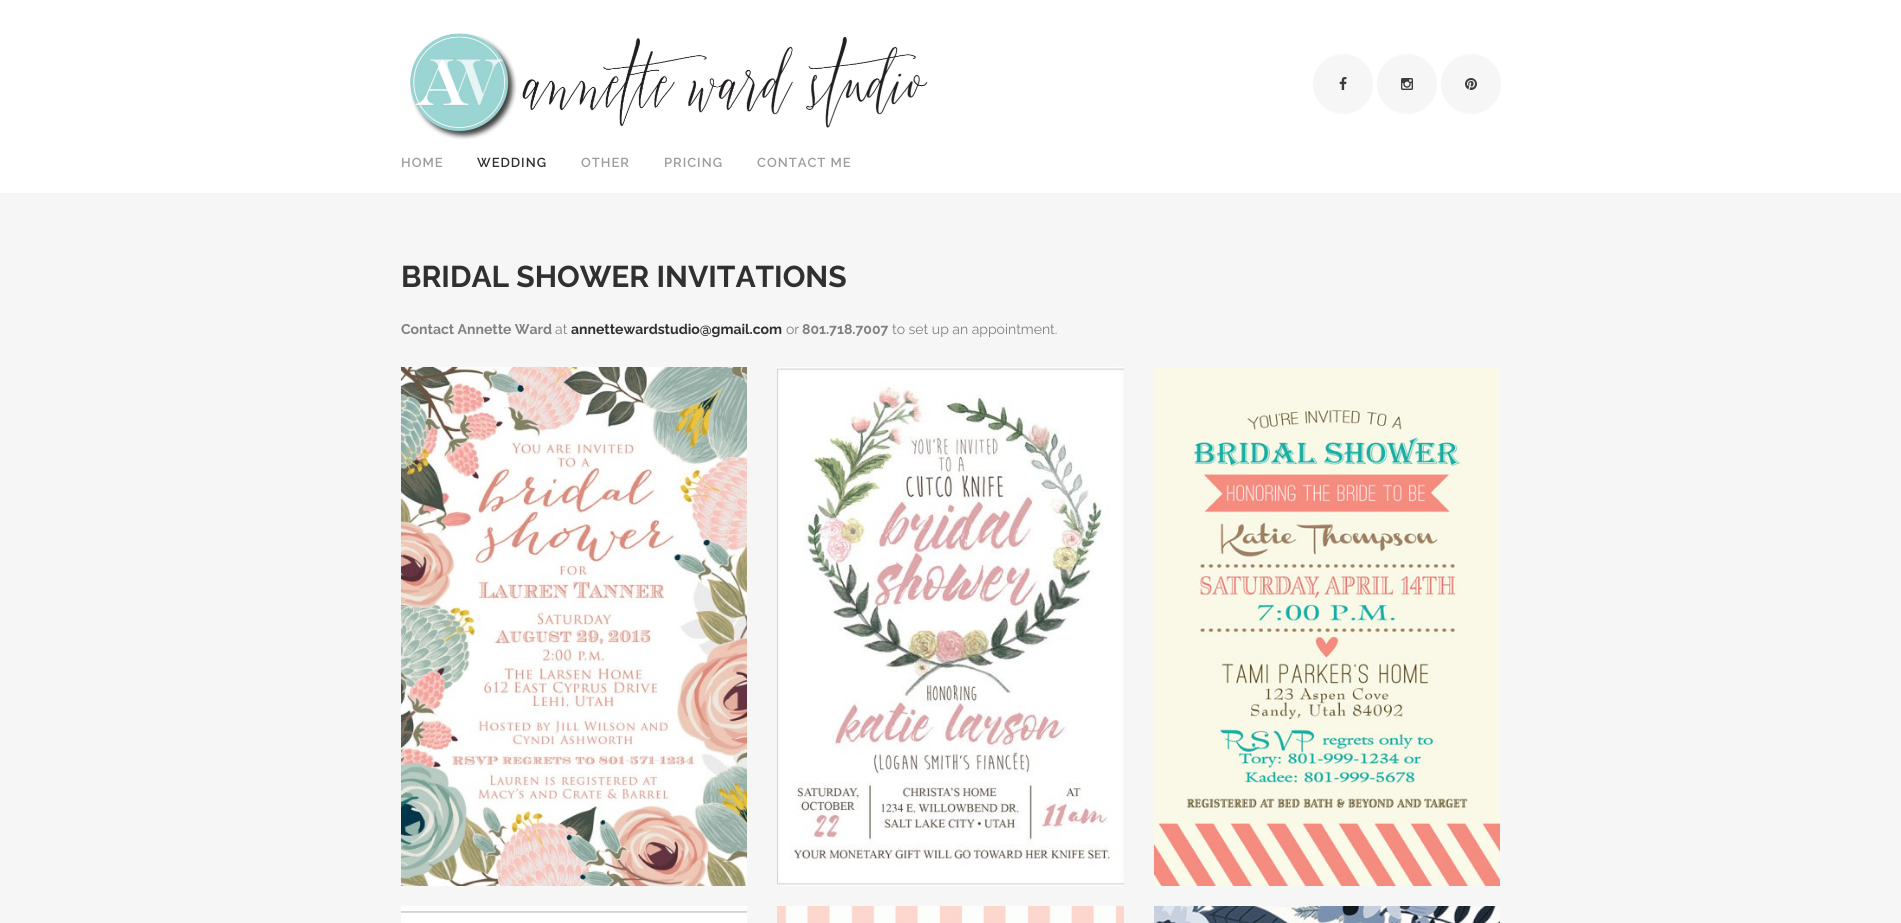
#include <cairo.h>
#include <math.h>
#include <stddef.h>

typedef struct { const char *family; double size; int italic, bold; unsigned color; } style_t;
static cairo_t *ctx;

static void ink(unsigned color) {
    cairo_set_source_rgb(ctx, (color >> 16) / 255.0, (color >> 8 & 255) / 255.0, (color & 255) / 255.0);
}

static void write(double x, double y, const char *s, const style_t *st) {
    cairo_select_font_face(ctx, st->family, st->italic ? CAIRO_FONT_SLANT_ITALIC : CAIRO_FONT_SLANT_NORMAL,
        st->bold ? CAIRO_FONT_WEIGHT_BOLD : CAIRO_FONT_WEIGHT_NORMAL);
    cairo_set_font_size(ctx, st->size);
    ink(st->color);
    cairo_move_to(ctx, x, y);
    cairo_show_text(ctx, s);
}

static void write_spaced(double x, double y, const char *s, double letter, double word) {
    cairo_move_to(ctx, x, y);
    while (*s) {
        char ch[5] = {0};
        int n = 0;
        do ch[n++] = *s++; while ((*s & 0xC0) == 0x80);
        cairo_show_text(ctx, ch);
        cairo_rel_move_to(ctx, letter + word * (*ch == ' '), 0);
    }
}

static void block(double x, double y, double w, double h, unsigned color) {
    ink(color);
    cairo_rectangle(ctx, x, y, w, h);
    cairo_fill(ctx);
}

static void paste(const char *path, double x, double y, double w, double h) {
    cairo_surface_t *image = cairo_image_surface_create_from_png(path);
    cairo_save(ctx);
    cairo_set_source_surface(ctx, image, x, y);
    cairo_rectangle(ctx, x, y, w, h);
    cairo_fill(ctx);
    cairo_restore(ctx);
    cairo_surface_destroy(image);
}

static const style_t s1 = {"Raleway", 30, 0, 1, 0x303030};
static const style_t s2 = {"Raleway", 14, 0, 1, 0x818181};
static const style_t s3 = {"Raleway", 14, 0, 0, 0x818181};
static const style_t s4 = {"Raleway", 14, 0, 1, 0x303030};

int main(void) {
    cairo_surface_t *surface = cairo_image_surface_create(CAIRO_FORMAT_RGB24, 1901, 923);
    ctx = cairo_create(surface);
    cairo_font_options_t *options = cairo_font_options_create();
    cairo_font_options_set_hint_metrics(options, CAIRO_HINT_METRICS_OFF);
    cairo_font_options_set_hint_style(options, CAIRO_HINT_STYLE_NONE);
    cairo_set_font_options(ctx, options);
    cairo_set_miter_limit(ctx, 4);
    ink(0xf6f6f6);
    cairo_paint(ctx);
    block(0, 0, 1901, 193, 0xffffff);
    paste("pic1.png", 401, 33, 533, 107);
    ink(0xf6f6f6);
    cairo_arc(ctx, 1343, 84, 30, 0, 2 * M_PI);
    cairo_fill(ctx);
    paste("pic2.png", 1339, 77, 8, 13);
    cairo_arc(ctx, 1407, 84, 30, 0, 2 * M_PI);
    cairo_fill(ctx);
    paste("pic3.png", 1401, 78, 12, 12);
    cairo_arc(ctx, 1471, 84, 30, 0, 2 * M_PI);
    cairo_fill(ctx);
    paste("pic4.png", 1465, 78, 12, 12);
    cairo_select_font_face(ctx, "Raleway SemiBold", CAIRO_FONT_SLANT_NORMAL, CAIRO_FONT_WEIGHT_NORMAL);
    cairo_set_font_size(ctx, 13);
    ink(0x9d9d9d);
    write_spaced(401, 167, "HOME", 1, 0);
    ink(0x303030);
    write_spaced(477, 167, "WEDDING", 1, 0);
    ink(0x9d9d9d);
    write_spaced(581, 167, "OTHER", 1, 0);
    write_spaced(664, 167, "PRICING", 1, 0);
    write_spaced(757, 167, "CONTACT ME", 1, 0);
    write(401, 287, "BRIDAL SHOWER INVITATIONS", &s1);
    write(401, 334, "Contact Annette Ward", &s2);
    write(555, 334, "at", &s3);
    write(571, 334, "annettewardstudio@gmail.com", &s4);
    write(786, 334, "or", &s3);
    write(802, 334, "801.718.7007", &s2);
    write(892, 334, "to set up an appointment.", &s3);
    paste("pic5.png", 401, 367, 346, 519);
    paste("pic6.png", 777, 367, 347, 519);
    paste("pic7.png", 1154, 367, 346, 519);
    paste("pic8.png", 401, 906, 346, 17);
    paste("pic9.png", 777, 906, 347, 17);
    paste("pic10.png", 1154, 906, 346, 17);
    cairo_surface_write_to_png(surface, "screenshot.png");
    cairo_font_options_destroy(options);
    cairo_destroy(ctx);
    cairo_surface_destroy(surface);
    return 0;
}
